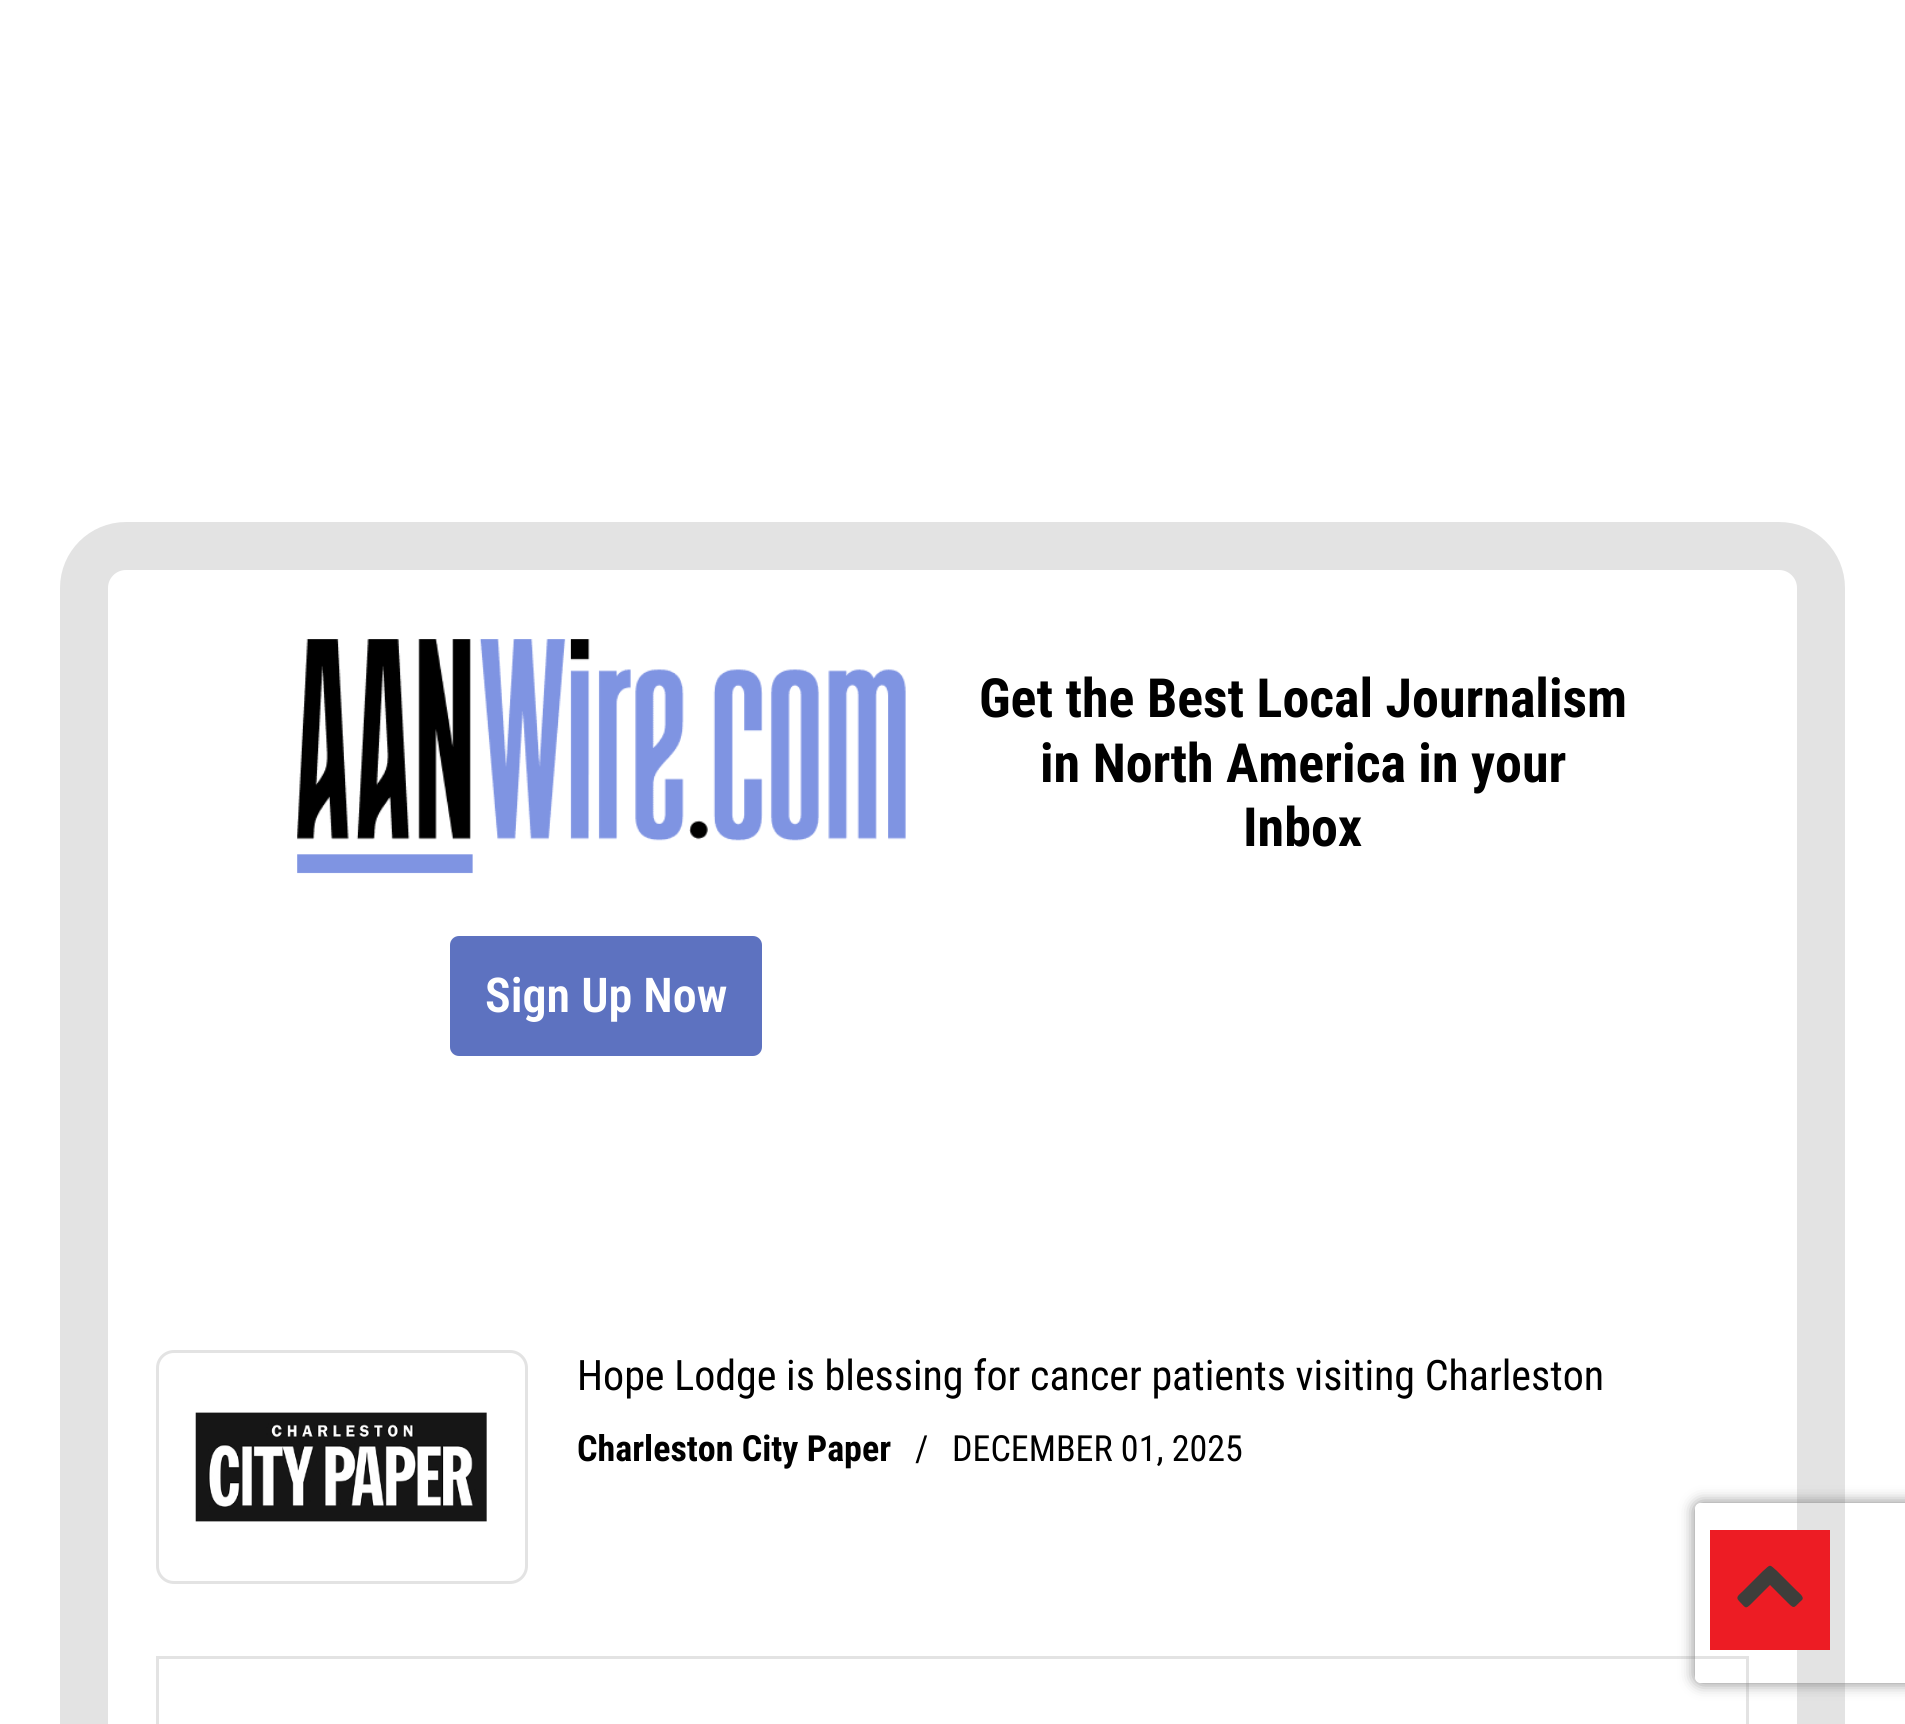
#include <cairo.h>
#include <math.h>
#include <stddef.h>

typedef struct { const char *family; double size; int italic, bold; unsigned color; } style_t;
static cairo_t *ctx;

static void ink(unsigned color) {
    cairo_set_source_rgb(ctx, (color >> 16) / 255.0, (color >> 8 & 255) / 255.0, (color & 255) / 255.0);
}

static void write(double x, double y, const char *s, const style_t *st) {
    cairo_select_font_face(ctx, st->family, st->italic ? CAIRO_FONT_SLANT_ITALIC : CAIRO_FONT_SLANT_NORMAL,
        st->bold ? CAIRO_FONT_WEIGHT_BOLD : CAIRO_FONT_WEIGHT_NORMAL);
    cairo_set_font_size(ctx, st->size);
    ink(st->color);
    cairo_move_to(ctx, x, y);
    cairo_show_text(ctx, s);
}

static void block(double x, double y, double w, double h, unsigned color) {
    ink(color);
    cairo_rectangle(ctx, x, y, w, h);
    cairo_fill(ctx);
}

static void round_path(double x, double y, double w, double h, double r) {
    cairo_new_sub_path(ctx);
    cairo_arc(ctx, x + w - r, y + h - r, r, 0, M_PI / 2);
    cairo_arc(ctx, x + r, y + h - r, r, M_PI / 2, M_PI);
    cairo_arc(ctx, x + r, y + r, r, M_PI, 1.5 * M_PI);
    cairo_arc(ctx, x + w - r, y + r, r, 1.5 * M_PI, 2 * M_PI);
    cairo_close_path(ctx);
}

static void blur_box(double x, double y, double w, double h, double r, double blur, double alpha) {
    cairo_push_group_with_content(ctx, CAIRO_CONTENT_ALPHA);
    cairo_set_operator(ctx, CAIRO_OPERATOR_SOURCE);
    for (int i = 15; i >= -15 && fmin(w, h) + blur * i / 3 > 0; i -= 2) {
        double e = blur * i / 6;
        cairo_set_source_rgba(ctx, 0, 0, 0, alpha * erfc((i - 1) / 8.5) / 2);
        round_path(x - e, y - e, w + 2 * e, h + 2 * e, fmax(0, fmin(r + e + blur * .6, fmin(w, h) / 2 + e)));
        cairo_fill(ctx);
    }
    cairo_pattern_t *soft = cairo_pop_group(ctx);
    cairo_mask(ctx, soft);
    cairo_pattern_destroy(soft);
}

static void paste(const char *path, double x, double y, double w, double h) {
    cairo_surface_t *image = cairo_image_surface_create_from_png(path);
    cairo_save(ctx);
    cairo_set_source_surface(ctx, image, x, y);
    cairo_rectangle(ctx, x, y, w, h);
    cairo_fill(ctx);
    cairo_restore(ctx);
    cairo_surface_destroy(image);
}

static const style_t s1 = {"Roboto Condensed", 54, 0, 1, 0x000000};
static const style_t s2 = {"Roboto Condensed SemiBold", 48, 0, 0, 0xffffff};
static const style_t s3 = {"Roboto Condensed", 42, 0, 0, 0x000000};
static const style_t s4 = {"Roboto Condensed", 36, 0, 1, 0x000000};
static const style_t s5 = {"Roboto Condensed", 36, 0, 0, 0x000000};

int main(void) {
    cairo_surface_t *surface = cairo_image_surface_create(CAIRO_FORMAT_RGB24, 1905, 1724);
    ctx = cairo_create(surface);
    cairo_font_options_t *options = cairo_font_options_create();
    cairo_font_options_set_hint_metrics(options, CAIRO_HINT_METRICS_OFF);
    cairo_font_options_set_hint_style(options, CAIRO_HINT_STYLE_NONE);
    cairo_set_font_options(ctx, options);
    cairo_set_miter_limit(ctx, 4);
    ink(0xffffff);
    cairo_paint(ctx);
    round_path(84, 546, 1737, 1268, 42);
    ink(0xe3e3e3);
    cairo_set_line_width(ctx, 48);
    cairo_stroke(ctx);
    paste("pic1.png", 297, 639, 609, 235);
    write(979, 717, "Get the Best Local Journalism", &s1);
    write(1040, 782, "in North America in your", &s1);
    write(1243, 846, "Inbox", &s1);
    ink(0x5d72c0);
    round_path(450, 936, 312, 120, 9);
    cairo_fill(ctx);
    write(485, 1012, "Sign Up Now", &s2);
    round_path(157.5, 1351.5, 369, 231, 16.5);
    ink(0xe3e3e3);
    cairo_set_line_width(ctx, 3);
    cairo_stroke(ctx);
    paste("pic2.png", 195, 1412, 292, 110);
    write(577, 1390, "Hope Lodge is blessing for cancer patients visiting Charleston", &s3);
    write(577, 1461, "Charleston City Paper", &s4);
    write(915, 1461, "/", &s5);
    write(952, 1461, "DECEMBER 01, 2025", &s5);
    cairo_rectangle(ctx, 157.5, 1657.5, 1590, 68);
    ink(0xe3e3e3);
    cairo_stroke(ctx);
    cairo_save(ctx);
    cairo_set_fill_rule(ctx, CAIRO_FILL_RULE_EVEN_ODD);
    cairo_new_path(ctx);
    cairo_move_to(ctx, 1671, 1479);
    cairo_line_to(ctx, 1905, 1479);
    cairo_line_to(ctx, 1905, 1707);
    cairo_line_to(ctx, 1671, 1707);
    cairo_close_path(ctx);
    cairo_move_to(ctx, 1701, 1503);
    cairo_line_to(ctx, 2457, 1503);
    cairo_curve_to(ctx, 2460.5, 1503, 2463, 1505.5, 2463, 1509);
    cairo_line_to(ctx, 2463, 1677);
    cairo_curve_to(ctx, 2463, 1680.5, 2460.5, 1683, 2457, 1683);
    cairo_line_to(ctx, 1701, 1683);
    cairo_curve_to(ctx, 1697.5, 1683, 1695, 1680.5, 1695, 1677);
    cairo_line_to(ctx, 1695, 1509);
    cairo_curve_to(ctx, 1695, 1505.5, 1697.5, 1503, 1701, 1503);
    cairo_close_path(ctx);
    cairo_clip(ctx);
    ink(0x808080);
    blur_box(1695, 1503, 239, 180, 6, 7.5, 1);
    cairo_restore(ctx);
    block(1710, 1530, 120, 120, 0xed1c24);
    ink(0x3e3e3b);
    cairo_new_path(ctx);
    cairo_move_to(ctx, 1802, 1600);
    cairo_curve_to(ctx, 1794, 1607, 1795, 1610, 1788, 1603);
    cairo_line_to(ctx, 1770, 1585);
    cairo_line_to(ctx, 1752, 1603);
    cairo_curve_to(ctx, 1745, 1610, 1746, 1608, 1739, 1601);
    cairo_curve_to(ctx, 1735, 1597, 1739, 1595, 1743, 1591);
    cairo_line_to(ctx, 1763, 1571);
    cairo_curve_to(ctx, 1771, 1564, 1769, 1564, 1777, 1571);
    cairo_line_to(ctx, 1797, 1591);
    cairo_curve_to(ctx, 1798, 1592, 1805, 1597, 1802, 1600);
    cairo_close_path(ctx);
    cairo_fill(ctx);
    cairo_surface_write_to_png(surface, "screenshot.png");
    cairo_font_options_destroy(options);
    cairo_destroy(ctx);
    cairo_surface_destroy(surface);
    return 0;
}
